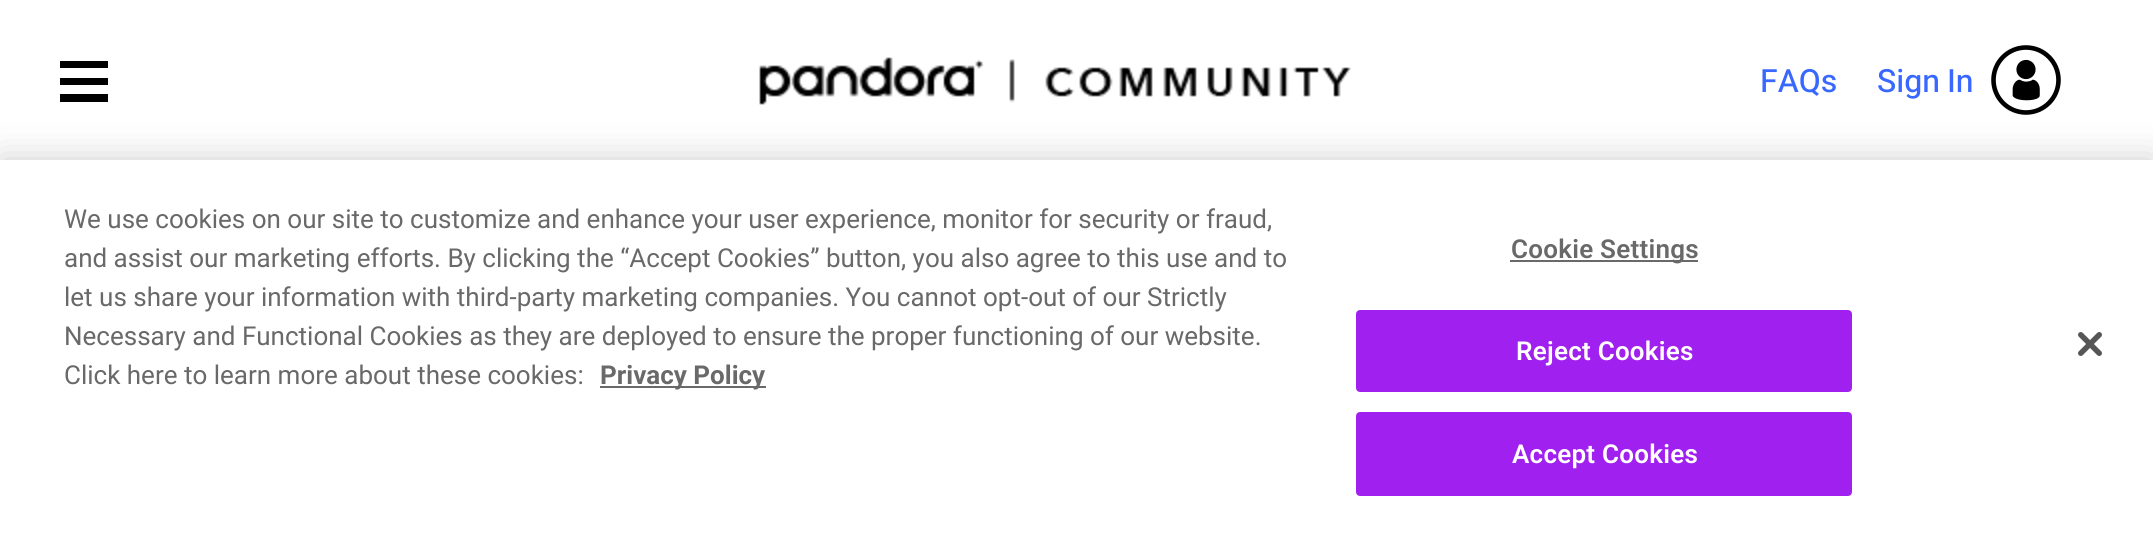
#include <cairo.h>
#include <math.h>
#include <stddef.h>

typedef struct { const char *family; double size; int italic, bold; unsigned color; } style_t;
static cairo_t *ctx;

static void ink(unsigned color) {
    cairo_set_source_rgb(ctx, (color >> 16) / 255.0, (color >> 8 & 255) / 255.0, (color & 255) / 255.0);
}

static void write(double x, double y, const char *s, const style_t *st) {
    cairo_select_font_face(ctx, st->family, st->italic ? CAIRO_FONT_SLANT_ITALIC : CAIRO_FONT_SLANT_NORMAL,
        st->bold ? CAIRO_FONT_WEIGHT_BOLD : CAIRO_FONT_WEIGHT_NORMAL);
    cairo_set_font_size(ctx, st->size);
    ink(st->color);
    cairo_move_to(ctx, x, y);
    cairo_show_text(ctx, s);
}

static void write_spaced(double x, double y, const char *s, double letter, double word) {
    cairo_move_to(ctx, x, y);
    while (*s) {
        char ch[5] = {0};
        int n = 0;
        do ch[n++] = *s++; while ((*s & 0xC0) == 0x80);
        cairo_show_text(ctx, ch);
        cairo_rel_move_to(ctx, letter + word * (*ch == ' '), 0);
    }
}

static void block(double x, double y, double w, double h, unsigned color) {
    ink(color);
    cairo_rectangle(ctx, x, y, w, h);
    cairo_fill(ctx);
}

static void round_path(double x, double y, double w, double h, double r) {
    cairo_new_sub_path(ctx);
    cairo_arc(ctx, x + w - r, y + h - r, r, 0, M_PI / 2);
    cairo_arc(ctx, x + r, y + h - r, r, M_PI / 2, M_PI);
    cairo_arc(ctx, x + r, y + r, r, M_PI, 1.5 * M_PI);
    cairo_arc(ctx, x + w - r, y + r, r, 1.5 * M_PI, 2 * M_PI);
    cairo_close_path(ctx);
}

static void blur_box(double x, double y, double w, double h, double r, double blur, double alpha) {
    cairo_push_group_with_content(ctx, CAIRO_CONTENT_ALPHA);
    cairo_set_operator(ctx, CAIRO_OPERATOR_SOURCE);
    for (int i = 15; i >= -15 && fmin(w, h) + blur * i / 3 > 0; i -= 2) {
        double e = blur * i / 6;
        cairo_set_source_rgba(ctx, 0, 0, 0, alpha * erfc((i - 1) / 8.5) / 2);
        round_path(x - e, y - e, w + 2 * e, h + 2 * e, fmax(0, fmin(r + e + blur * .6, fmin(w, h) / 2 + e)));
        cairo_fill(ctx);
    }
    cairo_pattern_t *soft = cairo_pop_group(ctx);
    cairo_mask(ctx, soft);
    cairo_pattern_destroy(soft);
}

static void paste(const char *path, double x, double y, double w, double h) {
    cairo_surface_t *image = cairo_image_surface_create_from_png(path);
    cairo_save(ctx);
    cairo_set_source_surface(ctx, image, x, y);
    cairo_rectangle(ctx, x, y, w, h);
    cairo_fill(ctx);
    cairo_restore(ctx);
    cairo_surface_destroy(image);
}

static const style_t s1 = {"Roboto", 32, 0, 0, 0x3868ff};
static const style_t s2 = {"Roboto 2", 26, 0, 0, 0x696969};
static const style_t s3 = {"Roboto", 26, 0, 1, 0x696969};

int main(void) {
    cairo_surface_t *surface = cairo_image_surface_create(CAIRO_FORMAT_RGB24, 2153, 536);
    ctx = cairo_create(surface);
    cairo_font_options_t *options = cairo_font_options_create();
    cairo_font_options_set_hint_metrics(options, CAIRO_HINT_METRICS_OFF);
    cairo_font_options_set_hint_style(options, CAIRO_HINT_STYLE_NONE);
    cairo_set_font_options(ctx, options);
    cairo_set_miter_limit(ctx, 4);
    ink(0xffffff);
    cairo_paint(ctx);
    ink(0x000000);
    cairo_set_fill_rule(ctx, CAIRO_FILL_RULE_EVEN_ODD);
    cairo_new_path(ctx);
    cairo_move_to(ctx, 60, 61);
    cairo_line_to(ctx, 108, 61);
    cairo_line_to(ctx, 108, 68);
    cairo_line_to(ctx, 60, 68);
    cairo_close_path(ctx);
    cairo_move_to(ctx, 60, 78);
    cairo_line_to(ctx, 108, 78);
    cairo_line_to(ctx, 108, 85);
    cairo_line_to(ctx, 60, 85);
    cairo_close_path(ctx);
    cairo_move_to(ctx, 60, 94);
    cairo_line_to(ctx, 108, 94);
    cairo_line_to(ctx, 108, 102);
    cairo_line_to(ctx, 60, 102);
    cairo_close_path(ctx);
    cairo_fill(ctx);
    paste("pic1.png", 759, 57, 592, 48);
    write(1760, 92, "FAQs", &s1);
    write_spaced(1877, 92, "Sign In", 0, -1);
    paste("pic2.png", 1991, 45, 70, 70);
    ink(0x000000);
    blur_box(0, 160, 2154, 376, 0, 18, 0.2);
    block(0, 160, 2153, 376, 0xffffff);
    write(64, 228, "We use cookies on our site to customize and enhance your user experience, monitor for security or fraud,", &s2);
    write(64, 267, "and assist our marketing efforts. By clicking the “Accept Cookies” button, you also agree to this use and to", &s2);
    write(64, 306, "let us share your information with third-party marketing companies. You cannot opt-out of our Strictly", &s2);
    write(64, 345, "Necessary and Functional Cookies as they are deployed to ensure the proper functioning of our website.", &s2);
    write(64, 384, "Click here to learn more about these cookies:", &s2);
    block(600, 386, 166, 2, 0x696969);
    write(600, 384, "Privacy Policy", &s3);
    block(1510, 260, 188, 2, 0x696969);
    cairo_select_font_face(ctx, "Roboto SemiBold", CAIRO_FONT_SLANT_NORMAL, CAIRO_FONT_WEIGHT_NORMAL);
    write_spaced(1511, 258, "Cookie Settings", 0.25, 0);
    ink(0xa020f0);
    round_path(1357, 311, 494, 80, 3);
    cairo_fill_preserve(ctx);
    cairo_stroke(ctx);
    ink(0xffffff);
    write_spaced(1516, 360, "Reject Cookies", 0.25, 0);
    ink(0xa020f0);
    round_path(1357, 413, 494, 82, 3);
    cairo_fill_preserve(ctx);
    cairo_stroke(ctx);
    ink(0xffffff);
    write_spaced(1512, 463, "Accept Cookies", 0.25, 0);
    paste("pic3.png", 2078, 332, 24, 24);
    cairo_surface_write_to_png(surface, "screenshot.png");
    cairo_font_options_destroy(options);
    cairo_destroy(ctx);
    cairo_surface_destroy(surface);
    return 0;
}
